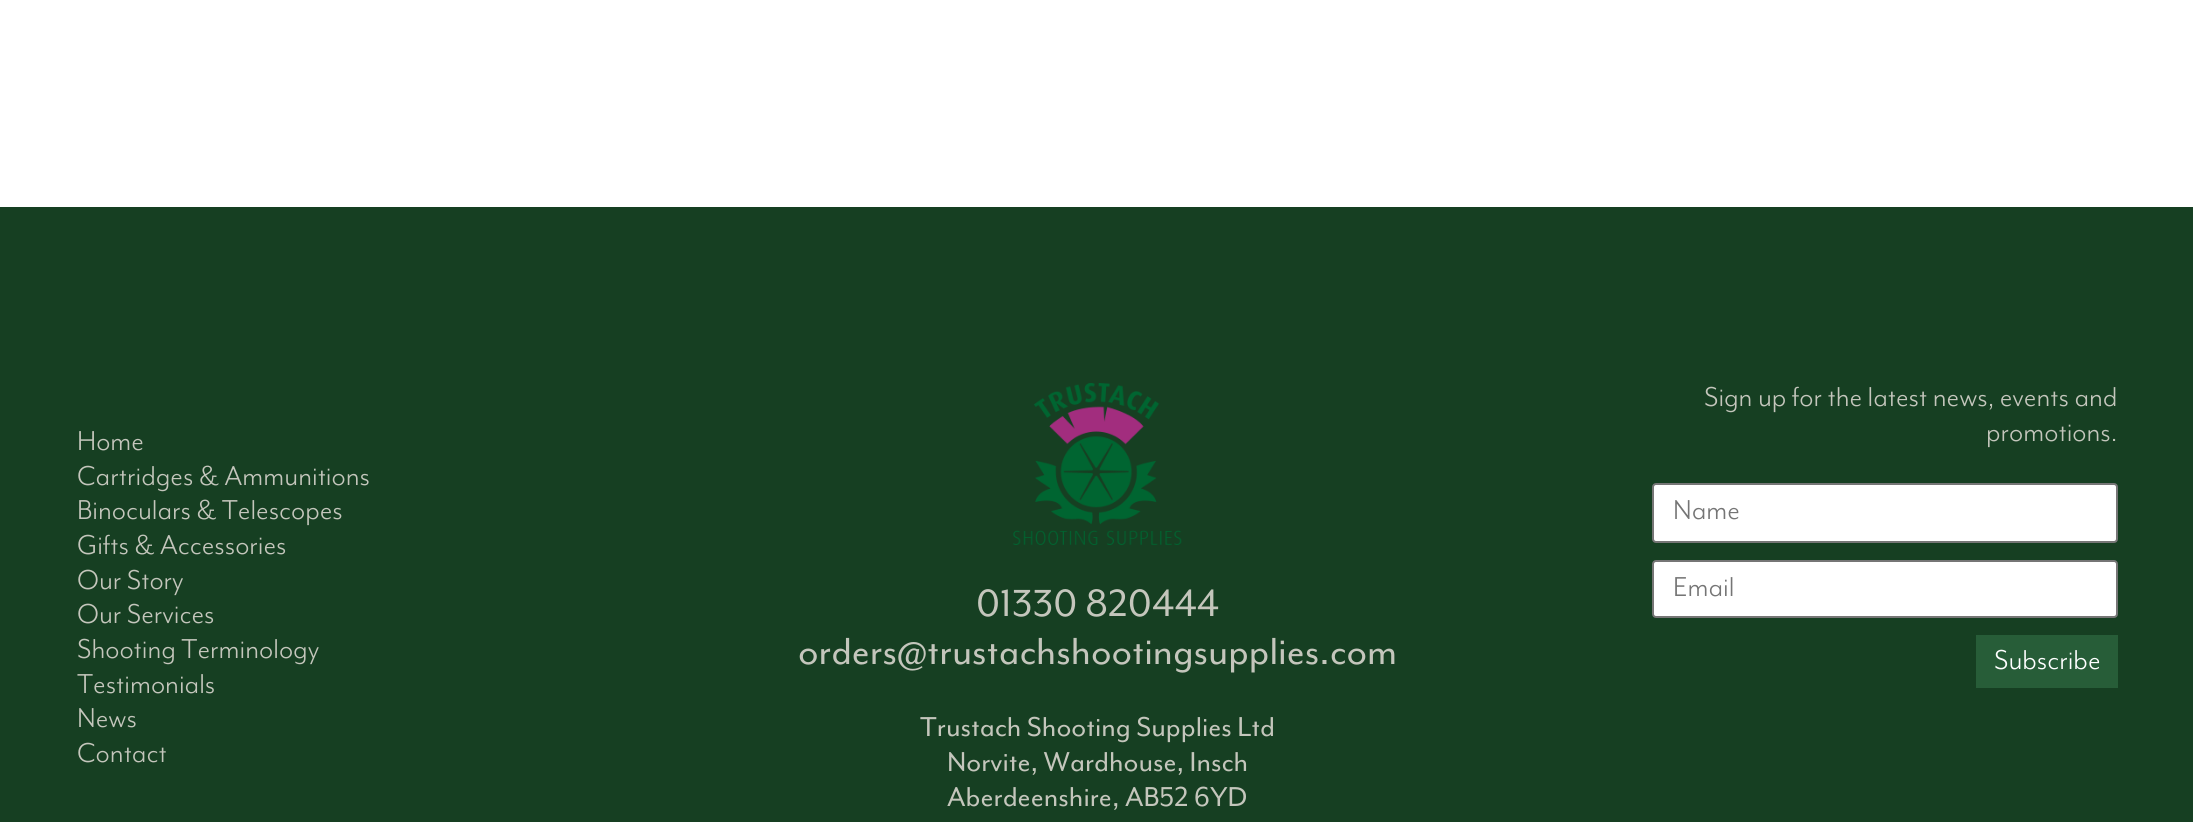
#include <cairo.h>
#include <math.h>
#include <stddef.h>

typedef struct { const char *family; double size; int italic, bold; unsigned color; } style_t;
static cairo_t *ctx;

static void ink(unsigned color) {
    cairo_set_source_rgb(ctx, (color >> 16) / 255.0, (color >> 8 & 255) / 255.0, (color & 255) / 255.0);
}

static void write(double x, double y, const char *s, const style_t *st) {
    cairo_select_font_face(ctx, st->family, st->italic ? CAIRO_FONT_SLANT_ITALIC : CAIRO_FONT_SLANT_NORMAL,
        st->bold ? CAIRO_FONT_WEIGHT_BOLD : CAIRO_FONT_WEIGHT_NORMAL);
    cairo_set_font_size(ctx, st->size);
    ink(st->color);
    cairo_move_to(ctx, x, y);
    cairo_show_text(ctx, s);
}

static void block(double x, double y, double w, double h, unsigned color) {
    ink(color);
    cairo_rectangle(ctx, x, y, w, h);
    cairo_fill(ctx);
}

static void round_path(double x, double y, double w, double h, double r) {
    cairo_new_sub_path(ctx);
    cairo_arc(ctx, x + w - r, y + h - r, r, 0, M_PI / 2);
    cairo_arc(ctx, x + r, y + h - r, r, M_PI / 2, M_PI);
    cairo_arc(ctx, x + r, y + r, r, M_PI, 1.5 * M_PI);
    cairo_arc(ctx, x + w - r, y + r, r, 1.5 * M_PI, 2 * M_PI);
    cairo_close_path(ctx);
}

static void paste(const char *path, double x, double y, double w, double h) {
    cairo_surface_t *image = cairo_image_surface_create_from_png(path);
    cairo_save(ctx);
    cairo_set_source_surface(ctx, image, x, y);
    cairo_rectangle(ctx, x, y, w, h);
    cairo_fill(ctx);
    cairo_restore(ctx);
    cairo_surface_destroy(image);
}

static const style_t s1 = {"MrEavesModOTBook", 31.5, 0, 0, 0xc4c6bc};
static const style_t s2 = {"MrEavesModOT", 43.5, 0, 0, 0xc4c6bc};
static const style_t s3 = {"MrEavesModOT", 31.5, 0, 0, 0xc4c6bc};
static const style_t s4 = {"MrEavesModOTBook", 31.5, 0, 0, 0x757575};
static const style_t s5 = {"MrEavesModOTBook", 31.5, 0, 0, 0xffffff};

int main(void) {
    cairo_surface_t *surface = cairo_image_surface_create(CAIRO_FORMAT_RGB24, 2193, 822);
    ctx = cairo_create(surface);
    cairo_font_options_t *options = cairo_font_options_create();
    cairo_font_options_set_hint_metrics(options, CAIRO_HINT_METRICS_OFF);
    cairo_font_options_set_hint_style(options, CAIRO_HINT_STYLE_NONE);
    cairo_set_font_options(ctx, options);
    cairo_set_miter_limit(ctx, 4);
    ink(0x163f22);
    cairo_paint(ctx);
    block(0, 0, 2193, 207, 0xffffff);
    write(77, 450, "Home", &s1);
    write(77, 485, "Cartridges & Ammunitions", &s1);
    write(77, 519, "Binoculars & Telescopes", &s1);
    write(77, 554, "Gifts & Accessories", &s1);
    write(77, 589, "Our Story", &s1);
    write(77, 623, "Our Services", &s1);
    write(77, 658, "Shooting Terminology", &s1);
    write(77, 693, "Testimonials", &s1);
    write(77, 727, "News", &s1);
    write(77, 762, "Contact", &s1);
    paste("pic1.png", 1013, 383, 169, 162);
    write(976, 616, "01330 820444", &s2);
    write(798, 664, "orders@trustachshootingsupplies.com", &s2);
    write(920, 736, "Trustach Shooting Supplies Ltd", &s3);
    write(947, 771, "Norvite, Wardhouse, Insch", &s3);
    write(947, 806, "Aberdeenshire, AB52 6YD", &s3);
    write(1704, 406, "Sign up for the latest news, events and", &s1);
    write(1986, 441, "promotions.", &s1);
    ink(0xffffff);
    round_path(1653, 484, 464, 58, 3);
    cairo_fill_preserve(ctx);
    ink(0x767676);
    cairo_stroke(ctx);
    write(1673, 519, "Name", &s4);
    ink(0xffffff);
    round_path(1653, 561, 464, 56, 3);
    cairo_fill_preserve(ctx);
    ink(0x767676);
    cairo_stroke(ctx);
    write(1673, 596, "Email", &s4);
    block(1976, 635, 142, 53, 0x275d38);
    write(1994, 669, "Subscribe", &s5);
    cairo_surface_write_to_png(surface, "screenshot.png");
    cairo_font_options_destroy(options);
    cairo_destroy(ctx);
    cairo_surface_destroy(surface);
    return 0;
}
